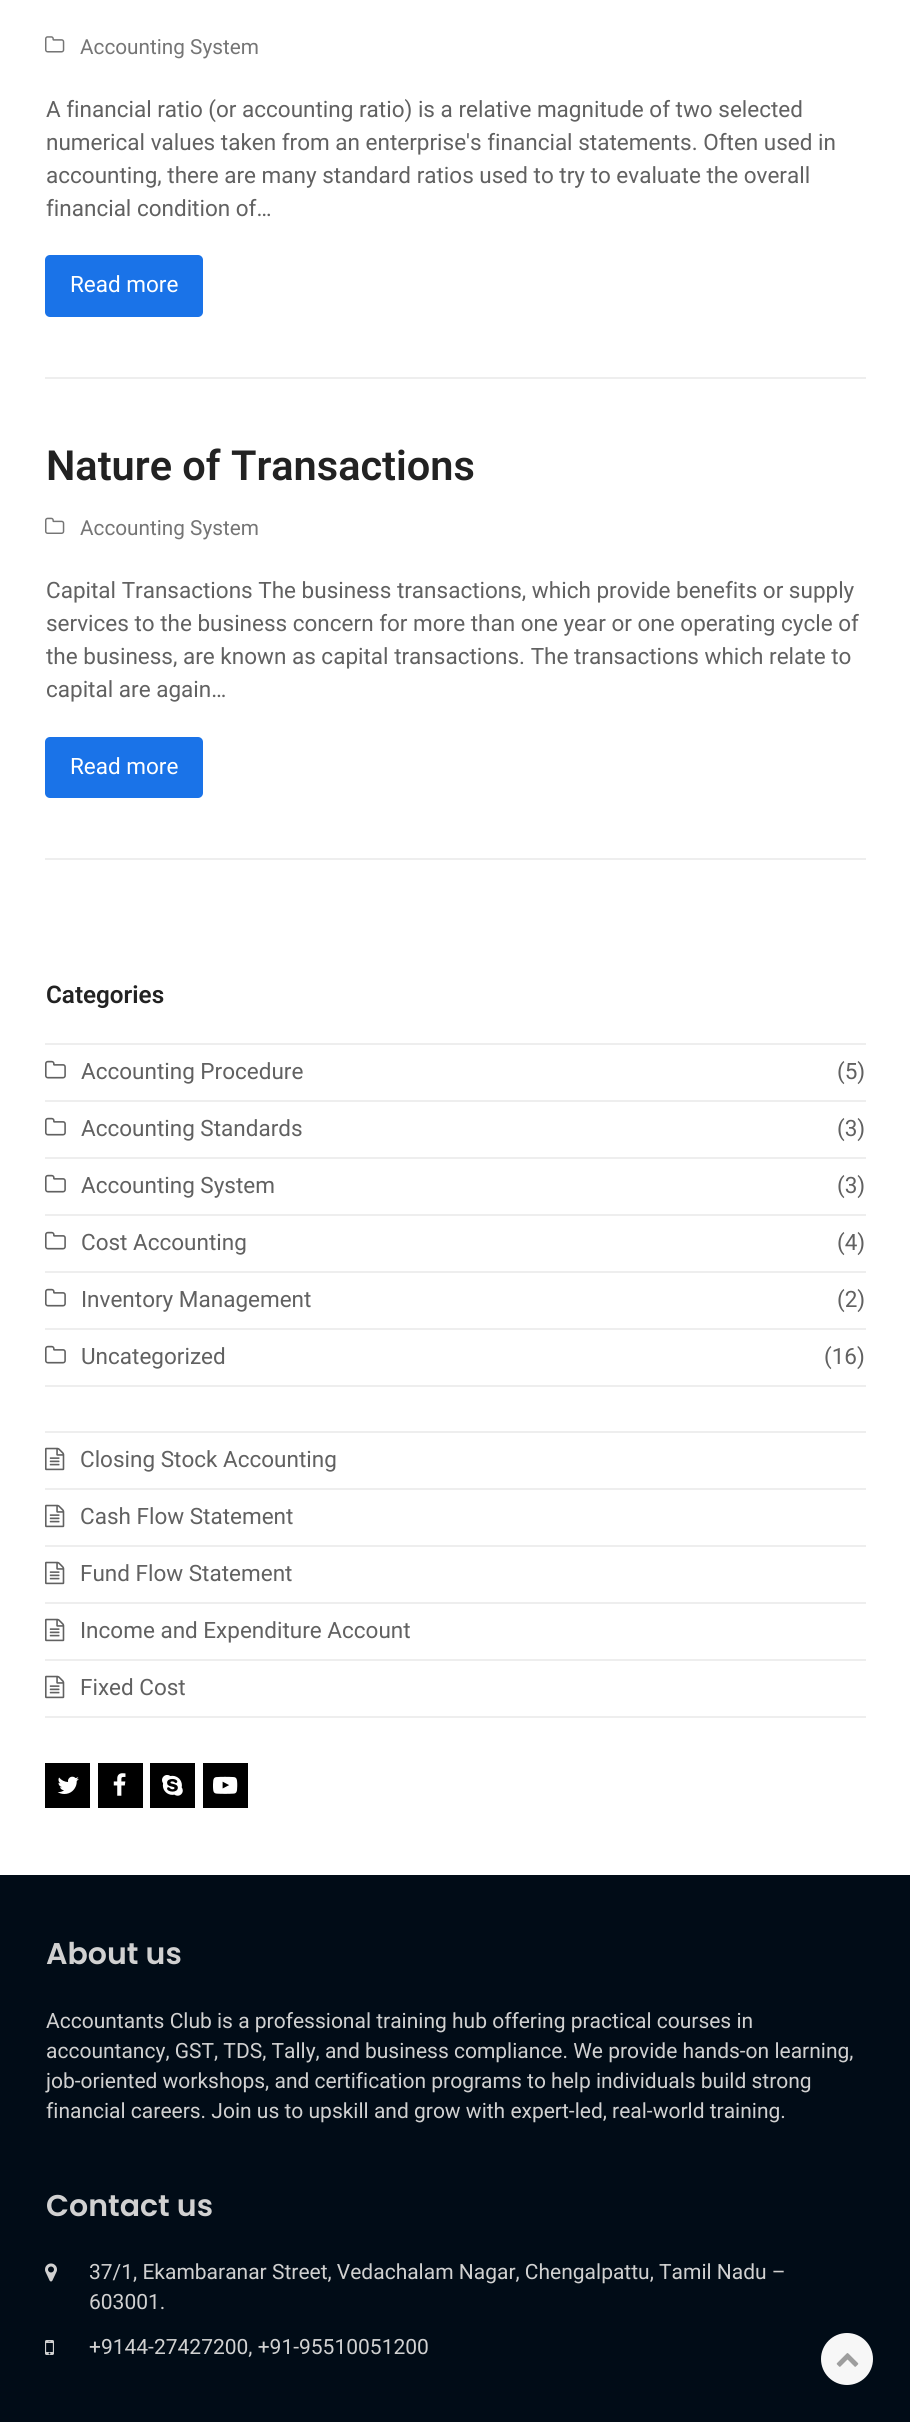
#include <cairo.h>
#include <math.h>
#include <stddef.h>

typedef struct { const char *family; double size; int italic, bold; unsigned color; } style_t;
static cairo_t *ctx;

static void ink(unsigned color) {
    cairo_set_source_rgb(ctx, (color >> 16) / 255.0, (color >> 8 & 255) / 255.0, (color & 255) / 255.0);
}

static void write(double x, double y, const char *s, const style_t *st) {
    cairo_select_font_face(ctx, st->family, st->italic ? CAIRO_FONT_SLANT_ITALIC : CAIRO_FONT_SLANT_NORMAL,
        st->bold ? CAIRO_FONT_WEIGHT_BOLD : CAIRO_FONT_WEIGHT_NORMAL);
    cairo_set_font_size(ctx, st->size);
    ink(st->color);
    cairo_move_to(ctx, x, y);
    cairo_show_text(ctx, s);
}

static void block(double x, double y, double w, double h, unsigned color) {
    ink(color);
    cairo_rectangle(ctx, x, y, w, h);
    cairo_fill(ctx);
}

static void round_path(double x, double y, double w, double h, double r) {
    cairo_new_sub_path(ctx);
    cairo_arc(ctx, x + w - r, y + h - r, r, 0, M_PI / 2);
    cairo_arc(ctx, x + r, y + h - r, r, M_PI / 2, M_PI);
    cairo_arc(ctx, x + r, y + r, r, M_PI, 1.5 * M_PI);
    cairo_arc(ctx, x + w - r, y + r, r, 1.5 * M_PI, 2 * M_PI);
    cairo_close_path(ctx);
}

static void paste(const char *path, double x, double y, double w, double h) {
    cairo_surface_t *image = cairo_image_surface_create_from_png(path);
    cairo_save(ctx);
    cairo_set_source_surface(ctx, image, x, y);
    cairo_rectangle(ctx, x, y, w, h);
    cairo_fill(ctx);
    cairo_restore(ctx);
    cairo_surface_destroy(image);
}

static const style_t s1 = {"Roboto", 20.75, 0, 0, 0x757575};
static const style_t s2 = {"Roboto", 22.5, 0, 0, 0x616161};
static const style_t s3 = {"Roboto", 22.5, 0, 0, 0xffffff};
static const style_t s4 = {"Roboto SemiBold", 41.5, 0, 0, 0x222222};
static const style_t s5 = {"Roboto SemiBold", 24.25, 0, 0, 0x222222};
static const style_t s6 = {"Poppins SemiBold", 30, 0, 0, 0xd1d1d1};
static const style_t s7 = {"Roboto", 21, 0, 0, 0xd1d1d1};

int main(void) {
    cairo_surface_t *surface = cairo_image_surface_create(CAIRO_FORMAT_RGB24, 910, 2422);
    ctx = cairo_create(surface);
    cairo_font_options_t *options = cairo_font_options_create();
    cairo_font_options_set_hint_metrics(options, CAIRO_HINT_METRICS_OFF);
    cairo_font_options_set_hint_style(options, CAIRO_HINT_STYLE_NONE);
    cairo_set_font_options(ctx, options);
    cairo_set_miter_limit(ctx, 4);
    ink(0xffffff);
    cairo_paint(ctx);
    paste("pic1.png", 45, 36, 20, 17);
    write(80, 54, "Accounting System", &s1);
    write(46, 117, "A financial ratio (or accounting ratio) is a relative magnitude of two selected", &s2);
    write(46, 150, "numerical values taken from an enterprise's financial statements. Often used in", &s2);
    write(46, 183, "accounting, there are many standard ratios used to try to evaluate the overall", &s2);
    write(46, 216, "financial condition of…", &s2);
    ink(0x1a73e8);
    round_path(45, 255, 158, 62, 5);
    cairo_fill(ctx);
    write(70, 292, "Read more", &s3);
    block(45, 377, 821, 2, 0xeeeeee);
    write(46, 480, "Nature of Transactions", &s4);
    paste("pic2.png", 45, 517, 20, 17);
    write(80, 535, "Accounting System", &s1);
    write(46, 598, "Capital Transactions The business transactions, which provide benefits or supply", &s2);
    write(46, 631, "services to the business concern for more than one year or one operating cycle of", &s2);
    write(46, 664, "the business, are known as capital transactions. The transactions which relate to", &s2);
    write(46, 697, "capital are again…", &s2);
    ink(0x1a73e8);
    round_path(45, 737, 158, 61, 5);
    cairo_fill(ctx);
    write(70, 774, "Read more", &s3);
    block(45, 858, 821, 2, 0xeeeeee);
    write(46, 1003, "Categories", &s5);
    block(45, 1043, 821, 2, 0xeeeeee);
    block(45, 1100, 821, 2, 0xeeeeee);
    paste("pic3.png", 45, 1060, 21, 19);
    write(81, 1079, "Accounting Procedure", &s2);
    write(837, 1079, "(5)", &s2);
    block(45, 1157, 821, 2, 0xeeeeee);
    paste("pic3.png", 45, 1117, 21, 19);
    write(81, 1136, "Accounting Standards", &s2);
    write(837, 1136, "(3)", &s2);
    block(45, 1214, 821, 2, 0xeeeeee);
    paste("pic3.png", 45, 1174, 21, 19);
    write(81, 1193, "Accounting System", &s2);
    write(837, 1193, "(3)", &s2);
    block(45, 1271, 821, 2, 0xeeeeee);
    paste("pic3.png", 45, 1231, 21, 19);
    write(81, 1250, "Cost Accounting", &s2);
    write(837, 1250, "(4)", &s2);
    block(45, 1328, 821, 2, 0xeeeeee);
    paste("pic3.png", 45, 1288, 21, 19);
    write(81, 1307, "Inventory Management", &s2);
    write(837, 1307, "(2)", &s2);
    block(45, 1385, 821, 2, 0xeeeeee);
    paste("pic3.png", 45, 1345, 21, 19);
    write(81, 1364, "Uncategorized", &s2);
    write(824, 1364, "(16)", &s2);
    block(45, 1431, 821, 2, 0xeeeeee);
    block(45, 1488, 821, 2, 0xeeeeee);
    paste("pic4.png", 45, 1447, 20, 24);
    write(80, 1467, "Closing Stock Accounting", &s2);
    block(45, 1545, 821, 2, 0xeeeeee);
    paste("pic4.png", 45, 1504, 20, 24);
    write(80, 1524, "Cash Flow Statement", &s2);
    block(45, 1602, 821, 2, 0xeeeeee);
    paste("pic4.png", 45, 1561, 20, 24);
    write(80, 1581, "Fund Flow Statement", &s2);
    block(45, 1659, 821, 2, 0xeeeeee);
    paste("pic4.png", 45, 1618, 20, 24);
    write(80, 1638, "Income and Expenditure Account", &s2);
    block(45, 1716, 821, 2, 0xeeeeee);
    paste("pic4.png", 45, 1675, 20, 24);
    write(80, 1695, "Fixed Cost", &s2);
    block(45, 1763, 45, 45, 0x000000);
    paste("pic5.png", 57, 1776, 22, 18);
    block(98, 1763, 45, 45, 0x000000);
    paste("pic6.png", 113, 1773, 13, 23);
    block(150, 1763, 45, 45, 0x000000);
    paste("pic7.png", 162, 1775, 21, 21);
    block(203, 1763, 45, 45, 0x000000);
    paste("pic8.png", 213, 1776, 25, 18);
    block(0, 1875, 910, 547, 0x010c17);
    write(46, 1964, "About us", &s6);
    write(46, 2028, "Accountants Club is a professional training hub offering practical courses in", &s7);
    write(46, 2058, "accountancy, GST, TDS, Tally, and business compliance. We provide hands-on learning,", &s7);
    write(46, 2088, "job-oriented workshops, and certification programs to help individuals build strong", &s7);
    write(46, 2118, "financial careers. Join us to upskill and grow with expert-led, real-world training.", &s7);
    write(46, 2216, "Contact us", &s6);
    paste("pic9.png", 45, 2263, 12, 19);
    write(89, 2279, "37/1, Ekambaranar Street, Vedachalam Nagar, Chengalpattu, Tamil Nadu –", &s7);
    write(89, 2309, "603001.", &s7);
    paste("pic10.png", 45, 2340, 9, 15);
    write(89, 2354, "+9144-27427200, +91-95510051200", &s7);
    ink(0xf7f7f7);
    cairo_new_path(ctx);
    cairo_arc(ctx, 847, 2359, 26, 0, 2 * M_PI);
    cairo_fill(ctx);
    paste("pic11.png", 836, 2353, 23, 14);
    cairo_surface_write_to_png(surface, "screenshot.png");
    cairo_font_options_destroy(options);
    cairo_destroy(ctx);
    cairo_surface_destroy(surface);
    return 0;
}
